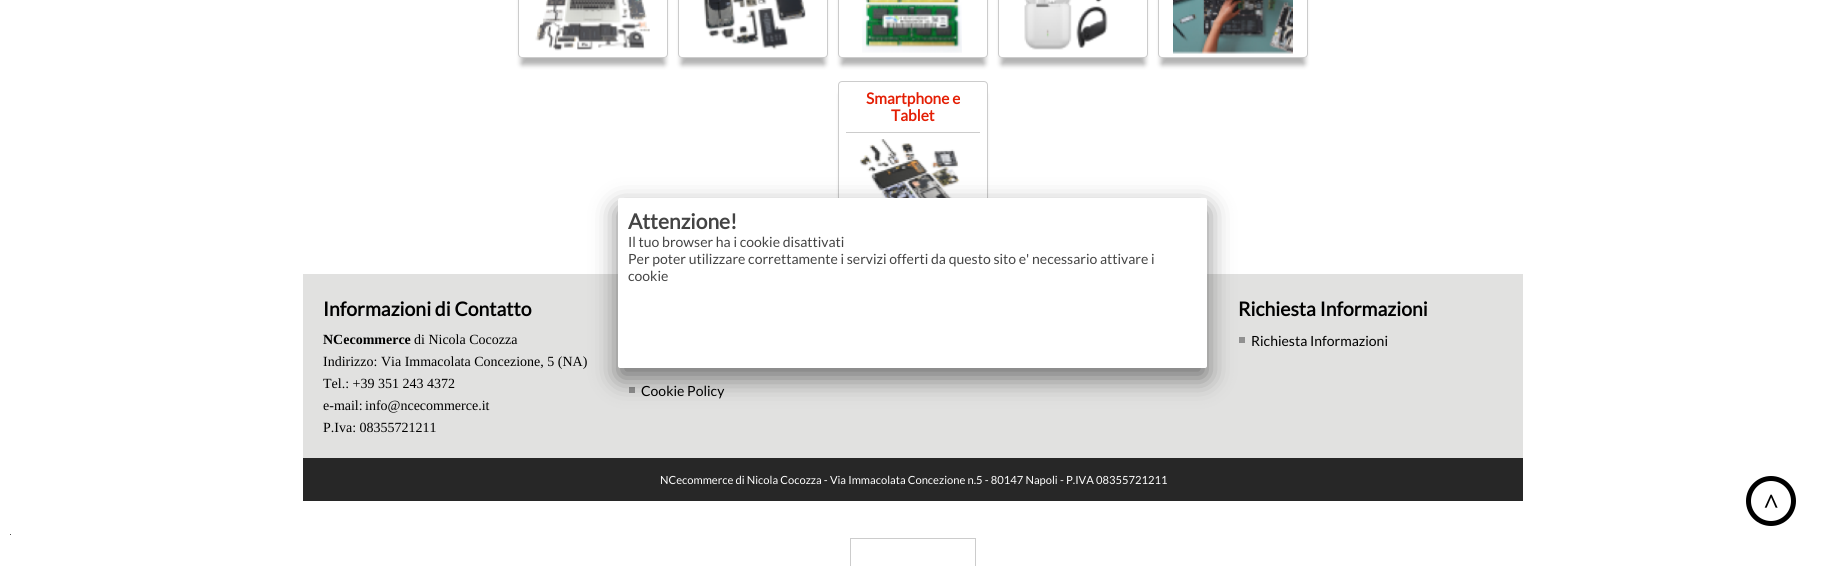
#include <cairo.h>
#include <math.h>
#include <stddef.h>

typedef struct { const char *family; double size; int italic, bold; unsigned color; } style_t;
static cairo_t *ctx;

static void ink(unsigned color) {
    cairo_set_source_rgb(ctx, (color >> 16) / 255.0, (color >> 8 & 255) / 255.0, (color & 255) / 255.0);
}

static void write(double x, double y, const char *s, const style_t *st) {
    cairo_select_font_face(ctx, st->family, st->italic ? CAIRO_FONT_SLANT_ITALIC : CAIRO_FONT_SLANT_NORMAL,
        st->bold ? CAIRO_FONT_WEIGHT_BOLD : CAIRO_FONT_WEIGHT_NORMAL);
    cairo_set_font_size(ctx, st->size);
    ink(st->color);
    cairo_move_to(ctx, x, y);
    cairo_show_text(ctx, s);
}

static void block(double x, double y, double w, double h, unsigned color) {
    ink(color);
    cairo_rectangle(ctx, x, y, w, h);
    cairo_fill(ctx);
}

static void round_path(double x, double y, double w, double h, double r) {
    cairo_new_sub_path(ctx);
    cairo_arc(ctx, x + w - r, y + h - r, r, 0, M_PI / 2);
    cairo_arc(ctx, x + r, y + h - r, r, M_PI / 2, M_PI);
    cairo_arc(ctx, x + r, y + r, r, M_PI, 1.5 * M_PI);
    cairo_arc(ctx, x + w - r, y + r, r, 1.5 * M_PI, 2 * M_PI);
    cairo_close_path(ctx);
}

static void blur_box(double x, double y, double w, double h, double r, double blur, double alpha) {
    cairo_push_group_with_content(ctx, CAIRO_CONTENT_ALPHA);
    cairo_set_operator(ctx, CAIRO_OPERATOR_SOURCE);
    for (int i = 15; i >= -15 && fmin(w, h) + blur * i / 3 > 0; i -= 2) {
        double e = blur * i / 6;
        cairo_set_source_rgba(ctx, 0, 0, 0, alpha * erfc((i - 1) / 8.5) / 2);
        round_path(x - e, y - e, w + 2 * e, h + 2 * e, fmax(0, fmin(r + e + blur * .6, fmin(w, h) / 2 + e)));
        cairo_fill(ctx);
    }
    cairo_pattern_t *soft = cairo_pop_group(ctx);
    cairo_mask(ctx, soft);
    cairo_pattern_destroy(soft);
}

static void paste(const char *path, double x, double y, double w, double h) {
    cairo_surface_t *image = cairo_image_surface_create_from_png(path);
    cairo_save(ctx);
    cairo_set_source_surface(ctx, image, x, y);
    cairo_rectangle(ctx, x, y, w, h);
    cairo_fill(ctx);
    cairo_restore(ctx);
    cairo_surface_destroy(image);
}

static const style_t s1 = {"Lato", 15.5, 0, 1, 0xe41e04};
static const style_t s2 = {"Lato", 21, 0, 1, 0x444444};
static const style_t s3 = {"Lato", 14, 0, 0, 0x444444};
static const style_t s4 = {"Lato", 19.4, 0, 1, 0x000000};
static const style_t s5 = {"Liberation Serif", 14, 0, 1, 0x000000};
static const style_t s6 = {"Liberation Serif", 14, 0, 0, 0x000000};
static const style_t s7 = {"Lato", 14, 0, 0, 0x000000};
static const style_t s8 = {"Lato", 11.2, 0, 0, 0xffffff};
static const style_t s9 = {"Liberation Serif", 28, 0, 1, 0x000000};

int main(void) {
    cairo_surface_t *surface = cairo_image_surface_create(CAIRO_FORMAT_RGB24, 1826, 566);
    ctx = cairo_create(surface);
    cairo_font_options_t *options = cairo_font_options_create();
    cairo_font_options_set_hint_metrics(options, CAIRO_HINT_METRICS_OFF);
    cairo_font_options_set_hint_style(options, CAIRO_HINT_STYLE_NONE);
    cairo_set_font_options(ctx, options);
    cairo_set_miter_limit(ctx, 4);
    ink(0xffffff);
    cairo_paint(ctx);
    cairo_save(ctx);
    cairo_set_fill_rule(ctx, CAIRO_FILL_RULE_EVEN_ODD);
    cairo_new_path(ctx);
    cairo_move_to(ctx, 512, 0);
    cairo_line_to(ctx, 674, 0);
    cairo_line_to(ctx, 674, 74);
    cairo_line_to(ctx, 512, 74);
    cairo_close_path(ctx);
    cairo_move_to(ctx, 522, -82);
    cairo_line_to(ctx, 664, -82);
    cairo_curve_to(ctx, 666, -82, 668, -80, 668, -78);
    cairo_line_to(ctx, 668, 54);
    cairo_curve_to(ctx, 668, 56, 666, 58, 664, 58);
    cairo_line_to(ctx, 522, 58);
    cairo_curve_to(ctx, 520, 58, 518, 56, 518, 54);
    cairo_line_to(ctx, 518, -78);
    cairo_curve_to(ctx, 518, -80, 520, -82, 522, -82);
    cairo_close_path(ctx);
    cairo_clip(ctx);
    ink(0x000000);
    blur_box(521, -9, 144, 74, 1, 2.5, 0.3);
    cairo_restore(ctx);
    round_path(518.5, -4.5, 149, 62, 3.5);
    ink(0xcccccc);
    cairo_set_line_width(ctx, 1);
    cairo_stroke(ctx);
    paste("pic1.png", 535, 0, 115, 51);
    cairo_save(ctx);
    cairo_set_fill_rule(ctx, CAIRO_FILL_RULE_EVEN_ODD);
    cairo_new_path(ctx);
    cairo_move_to(ctx, 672, 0);
    cairo_line_to(ctx, 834, 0);
    cairo_line_to(ctx, 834, 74);
    cairo_line_to(ctx, 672, 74);
    cairo_close_path(ctx);
    cairo_move_to(ctx, 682, -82);
    cairo_line_to(ctx, 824, -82);
    cairo_curve_to(ctx, 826, -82, 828, -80, 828, -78);
    cairo_line_to(ctx, 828, 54);
    cairo_curve_to(ctx, 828, 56, 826, 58, 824, 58);
    cairo_line_to(ctx, 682, 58);
    cairo_curve_to(ctx, 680, 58, 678, 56, 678, 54);
    cairo_line_to(ctx, 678, -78);
    cairo_curve_to(ctx, 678, -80, 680, -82, 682, -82);
    cairo_close_path(ctx);
    cairo_clip(ctx);
    ink(0x000000);
    blur_box(681, -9, 144, 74, 1, 2.5, 0.3);
    cairo_restore(ctx);
    round_path(678.5, -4.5, 149, 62, 3.5);
    cairo_stroke(ctx);
    paste("pic2.png", 703, 0, 103, 50);
    cairo_save(ctx);
    cairo_set_fill_rule(ctx, CAIRO_FILL_RULE_EVEN_ODD);
    cairo_new_path(ctx);
    cairo_move_to(ctx, 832, 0);
    cairo_line_to(ctx, 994, 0);
    cairo_line_to(ctx, 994, 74);
    cairo_line_to(ctx, 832, 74);
    cairo_close_path(ctx);
    cairo_move_to(ctx, 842, -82);
    cairo_line_to(ctx, 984, -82);
    cairo_curve_to(ctx, 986, -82, 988, -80, 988, -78);
    cairo_line_to(ctx, 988, 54);
    cairo_curve_to(ctx, 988, 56, 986, 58, 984, 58);
    cairo_line_to(ctx, 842, 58);
    cairo_curve_to(ctx, 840, 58, 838, 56, 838, 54);
    cairo_line_to(ctx, 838, -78);
    cairo_curve_to(ctx, 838, -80, 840, -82, 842, -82);
    cairo_close_path(ctx);
    cairo_clip(ctx);
    ink(0x000000);
    blur_box(841, -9, 144, 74, 1, 2.5, 0.3);
    cairo_restore(ctx);
    round_path(838.5, -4.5, 149, 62, 3.5);
    cairo_stroke(ctx);
    paste("pic3.png", 862, 0, 100, 53);
    cairo_save(ctx);
    cairo_set_fill_rule(ctx, CAIRO_FILL_RULE_EVEN_ODD);
    cairo_new_path(ctx);
    cairo_move_to(ctx, 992, 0);
    cairo_line_to(ctx, 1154, 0);
    cairo_line_to(ctx, 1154, 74);
    cairo_line_to(ctx, 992, 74);
    cairo_close_path(ctx);
    cairo_move_to(ctx, 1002, -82);
    cairo_line_to(ctx, 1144, -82);
    cairo_curve_to(ctx, 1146, -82, 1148, -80, 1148, -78);
    cairo_line_to(ctx, 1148, 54);
    cairo_curve_to(ctx, 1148, 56, 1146, 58, 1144, 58);
    cairo_line_to(ctx, 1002, 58);
    cairo_curve_to(ctx, 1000, 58, 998, 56, 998, 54);
    cairo_line_to(ctx, 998, -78);
    cairo_curve_to(ctx, 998, -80, 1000, -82, 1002, -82);
    cairo_close_path(ctx);
    cairo_clip(ctx);
    ink(0x000000);
    blur_box(1001, -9, 144, 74, 1, 2.5, 0.3);
    cairo_restore(ctx);
    round_path(998.5, -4.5, 149, 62, 3.5);
    cairo_stroke(ctx);
    paste("pic4.png", 1024, 0, 84, 50);
    cairo_save(ctx);
    cairo_set_fill_rule(ctx, CAIRO_FILL_RULE_EVEN_ODD);
    cairo_new_path(ctx);
    cairo_move_to(ctx, 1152, 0);
    cairo_line_to(ctx, 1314, 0);
    cairo_line_to(ctx, 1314, 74);
    cairo_line_to(ctx, 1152, 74);
    cairo_close_path(ctx);
    cairo_move_to(ctx, 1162, -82);
    cairo_line_to(ctx, 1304, -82);
    cairo_curve_to(ctx, 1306, -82, 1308, -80, 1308, -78);
    cairo_line_to(ctx, 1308, 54);
    cairo_curve_to(ctx, 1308, 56, 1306, 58, 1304, 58);
    cairo_line_to(ctx, 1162, 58);
    cairo_curve_to(ctx, 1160, 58, 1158, 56, 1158, 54);
    cairo_line_to(ctx, 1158, -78);
    cairo_curve_to(ctx, 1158, -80, 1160, -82, 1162, -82);
    cairo_close_path(ctx);
    cairo_clip(ctx);
    ink(0x000000);
    blur_box(1161, -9, 144, 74, 1, 2.5, 0.3);
    cairo_restore(ctx);
    round_path(1158.5, -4.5, 149, 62, 3.5);
    cairo_stroke(ctx);
    paste("pic5.png", 1173, 0, 120, 54);
    cairo_save(ctx);
    cairo_set_fill_rule(ctx, CAIRO_FILL_RULE_EVEN_ODD);
    cairo_new_path(ctx);
    cairo_move_to(ctx, 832, 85);
    cairo_line_to(ctx, 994, 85);
    cairo_line_to(ctx, 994, 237);
    cairo_line_to(ctx, 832, 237);
    cairo_close_path(ctx);
    cairo_move_to(ctx, 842, 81);
    cairo_line_to(ctx, 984, 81);
    cairo_curve_to(ctx, 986, 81, 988, 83, 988, 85);
    cairo_line_to(ctx, 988, 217);
    cairo_curve_to(ctx, 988, 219, 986, 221, 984, 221);
    cairo_line_to(ctx, 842, 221);
    cairo_curve_to(ctx, 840, 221, 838, 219, 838, 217);
    cairo_line_to(ctx, 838, 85);
    cairo_curve_to(ctx, 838, 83, 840, 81, 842, 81);
    cairo_close_path(ctx);
    cairo_clip(ctx);
    ink(0x000000);
    blur_box(841, 94, 144, 134, 1, 2.5, 0.3);
    cairo_restore(ctx);
    round_path(838.5, 81.5, 149, 139, 3.5);
    cairo_stroke(ctx);
    block(846, 132, 134, 1, 0xcccccc);
    write(866, 104, "Smartphone e", &s1);
    write(891, 121, "Tablet", &s1);
    paste("pic6.png", 859, 139, 101, 59);
    block(303, 274, 1220, 184, 0xe1e1e0);
    block(1239, 337, 6, 6, 0x909090);
    block(629, 387, 6, 6, 0x909090);
    ink(0x000000);
    blur_box(618, 208, 589, 170, 2, 12.5, 0.5);
    ink(0xffffff);
    round_path(618, 198, 589, 170, 2);
    cairo_fill(ctx);
    write(628, 229, "Attenzione!", &s2);
    write(628, 247, "Il tuo browser ha i cookie disattivati", &s3);
    write(628, 264, "Per poter utilizzare correttamente i servizi offerti da questo sito e' necessario attivare i", &s3);
    write(628, 281, "cookie", &s3);
    write(323, 316, "Informazioni di Contatto", &s4);
    write(323, 344, "NCecommerce", &s5);
    write(414, 344, "di Nicola Cocozza", &s6);
    write(323, 366, "Indirizzo: Via Immacolata Concezione, 5 (NA)", &s6);
    write(323, 388, "Tel.: +39 351 243 4372", &s6);
    write(323, 410, "e-mail:", &s6);
    write(365, 410, "info@ncecommerce.it", &s6);
    write(323, 432, "P.Iva: 08355721211", &s6);
    write(1238, 316, "Richiesta Informazioni", &s4);
    write(1251, 346, "Richiesta Informazioni", &s7);
    write(641, 396, "Cookie Policy", &s7);
    block(303, 458, 1220, 43, 0x272727);
    write(660, 484, "NCecommerce di Nicola Cocozza - Via Immacolata Concezione n.5 - 80147 Napoli - P.IVA 08355721211", &s8);
    cairo_new_path(ctx);
    cairo_arc(ctx, 1771, 501, 22.5, 0, 2 * M_PI);
    ink(0x000000);
    cairo_set_line_width(ctx, 5);
    cairo_stroke(ctx);
    write(1763, 513, "^", &s9);
    block(10, 534, 1, 1, 0x4d4d4d);
    cairo_rectangle(ctx, 850.5, 538.5, 125, 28);
    ink(0xcccccc);
    cairo_set_line_width(ctx, 1);
    cairo_stroke(ctx);
    cairo_surface_write_to_png(surface, "screenshot.png");
    cairo_font_options_destroy(options);
    cairo_destroy(ctx);
    cairo_surface_destroy(surface);
    return 0;
}
